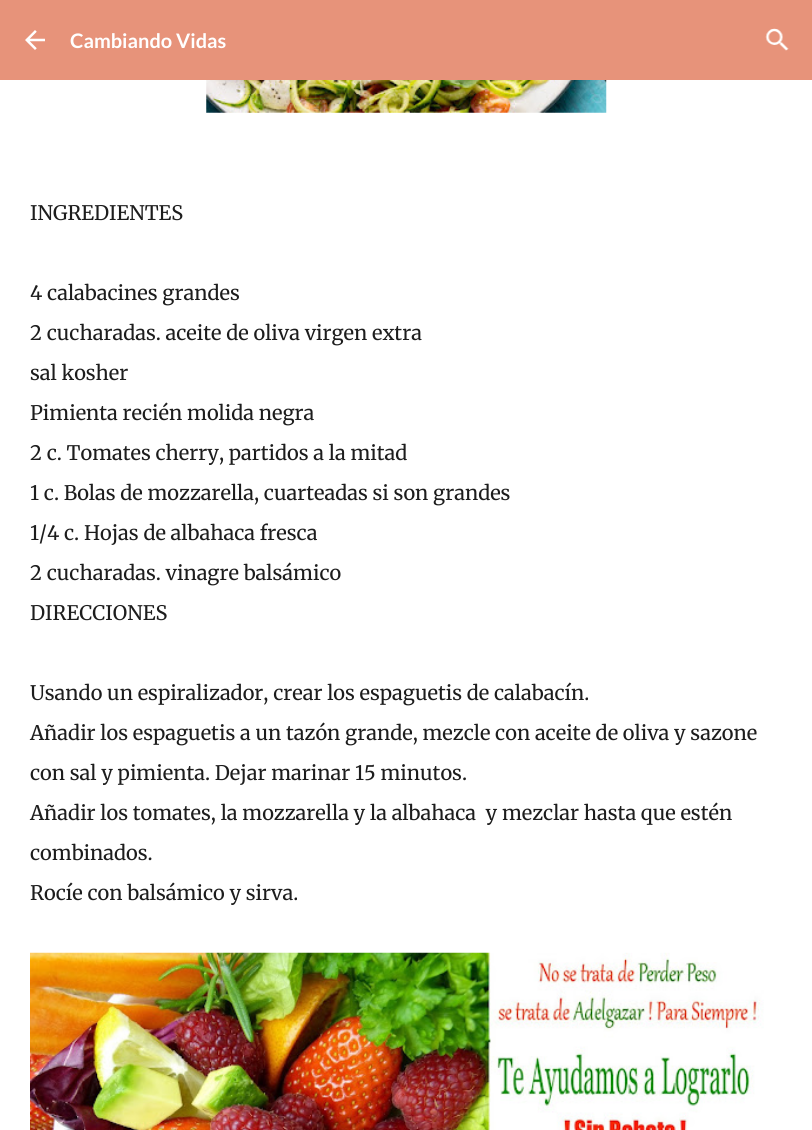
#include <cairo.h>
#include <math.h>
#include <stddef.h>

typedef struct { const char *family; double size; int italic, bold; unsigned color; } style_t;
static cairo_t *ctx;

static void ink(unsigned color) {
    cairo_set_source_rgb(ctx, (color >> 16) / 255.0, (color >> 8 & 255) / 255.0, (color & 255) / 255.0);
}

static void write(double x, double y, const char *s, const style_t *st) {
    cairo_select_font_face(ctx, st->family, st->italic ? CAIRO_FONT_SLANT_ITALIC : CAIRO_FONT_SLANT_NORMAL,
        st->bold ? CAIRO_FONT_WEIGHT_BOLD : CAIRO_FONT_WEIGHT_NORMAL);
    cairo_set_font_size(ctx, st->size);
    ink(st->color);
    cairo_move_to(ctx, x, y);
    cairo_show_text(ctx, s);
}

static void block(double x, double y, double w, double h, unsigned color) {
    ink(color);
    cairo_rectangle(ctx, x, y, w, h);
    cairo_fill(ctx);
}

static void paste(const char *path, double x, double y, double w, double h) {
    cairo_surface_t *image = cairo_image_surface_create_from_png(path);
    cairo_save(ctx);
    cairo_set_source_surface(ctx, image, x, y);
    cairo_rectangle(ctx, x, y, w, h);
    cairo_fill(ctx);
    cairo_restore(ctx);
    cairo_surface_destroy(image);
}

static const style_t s1 = {"Lato", 20, 0, 1, 0xffffff};
static const style_t s2 = {"Merriweather", 20, 0, 0, 0x1d1d1d};

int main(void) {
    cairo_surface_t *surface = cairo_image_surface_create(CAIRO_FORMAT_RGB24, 812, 1130);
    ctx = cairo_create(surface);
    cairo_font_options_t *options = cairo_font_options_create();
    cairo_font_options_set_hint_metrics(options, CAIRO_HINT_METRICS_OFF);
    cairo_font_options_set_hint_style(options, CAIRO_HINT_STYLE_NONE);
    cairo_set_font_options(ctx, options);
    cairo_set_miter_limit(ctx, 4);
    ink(0xffffff);
    cairo_paint(ctx);
    block(0, 0, 812, 80, 0xe7937a);
    paste("pic1.png", 25, 30, 20, 20);
    write(70, 48, "Cambiando Vidas", &s1);
    paste("pic2.png", 765, 28, 24, 23);
    paste("pic3.png", 206, 80, 401, 33);
    write(30, 220, "INGREDIENTES", &s2);
    write(30, 300, "4 calabacines grandes", &s2);
    write(30, 340, "2 cucharadas. aceite de oliva virgen extra", &s2);
    write(30, 380, "sal kosher", &s2);
    write(30, 420, "Pimienta recién molida negra", &s2);
    write(30, 460, "2 c. Tomates cherry, partidos a la mitad", &s2);
    write(30, 500, "1 c. Bolas de mozzarella, cuarteadas si son grandes", &s2);
    write(30, 540, "1/4 c. Hojas de albahaca fresca", &s2);
    write(30, 580, "2 cucharadas. vinagre balsámico", &s2);
    write(30, 620, "DIRECCIONES", &s2);
    write(30, 700, "Usando un espiralizador, crear los espaguetis de calabacín.", &s2);
    write(30, 740, "Añadir los espaguetis a un tazón grande, mezcle con aceite de oliva y sazone", &s2);
    write(30, 780, "con sal y pimienta. Dejar marinar 15 minutos.", &s2);
    write(30, 820, "Añadir los tomates, la mozzarella y la albahaca  y mezclar hasta que estén", &s2);
    write(30, 860, "combinados.", &s2);
    write(30, 900, "Rocíe con balsámico y sirva.", &s2);
    paste("pic4.png", 30, 952, 734, 178);
    cairo_surface_write_to_png(surface, "screenshot.png");
    cairo_font_options_destroy(options);
    cairo_destroy(ctx);
    cairo_surface_destroy(surface);
    return 0;
}
